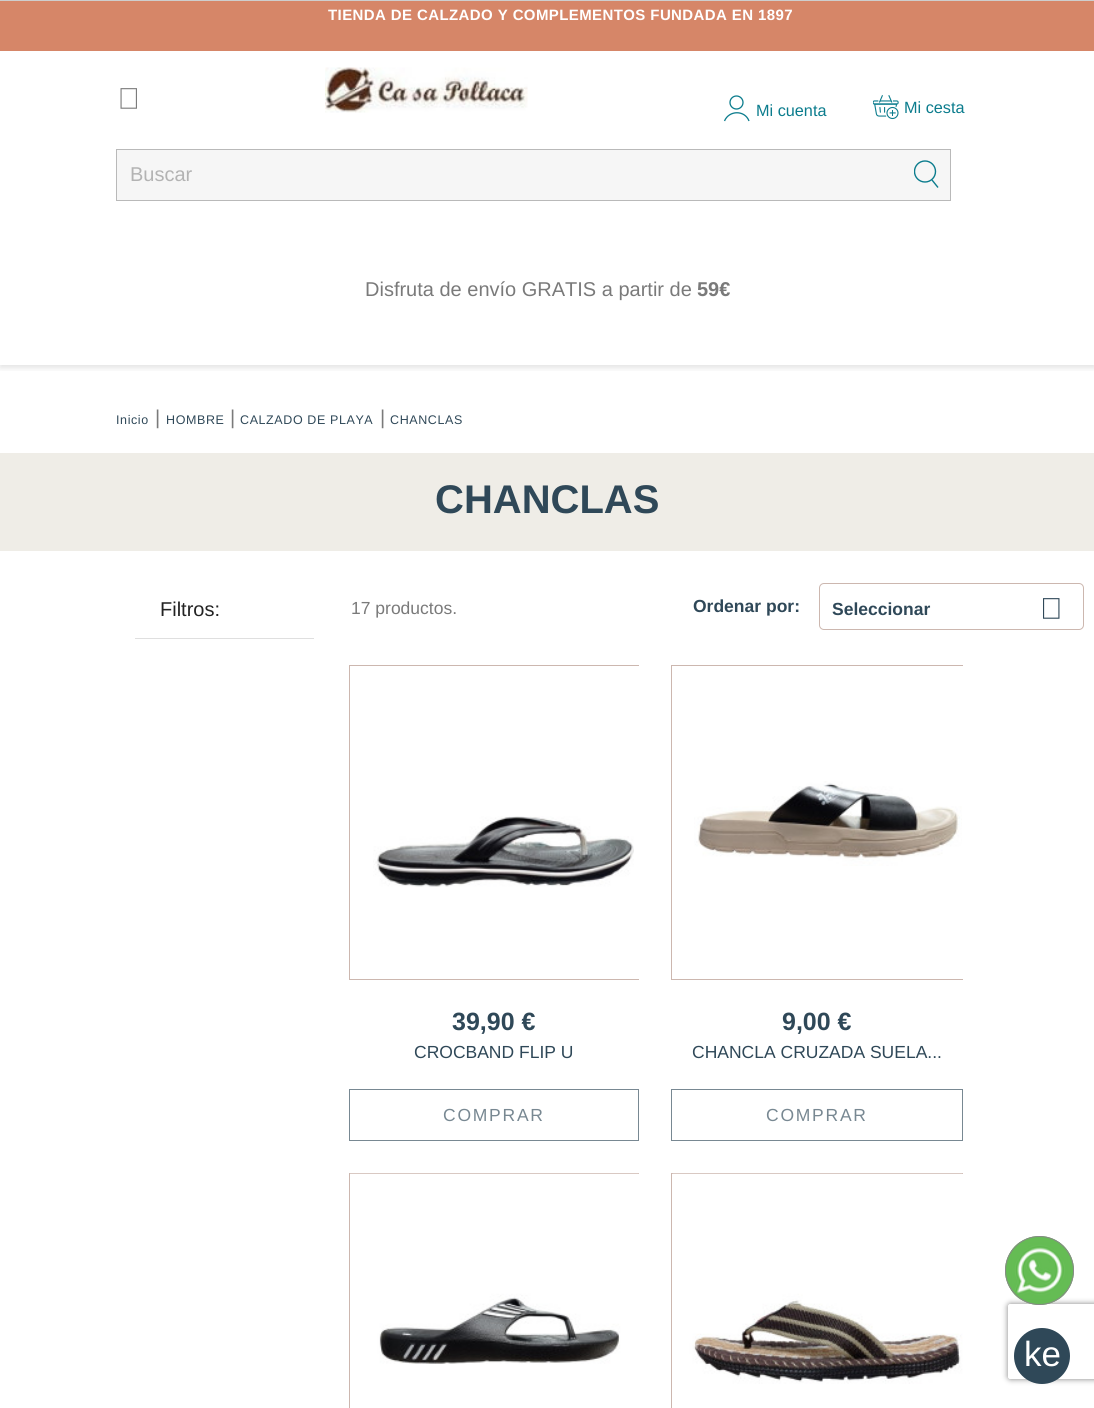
#include <cairo.h>
#include <math.h>
#include <stddef.h>

typedef struct { const char *family; double size; int italic, bold; unsigned color; } style_t;
static cairo_t *ctx;

static void ink(unsigned color) {
    cairo_set_source_rgb(ctx, (color >> 16) / 255.0, (color >> 8 & 255) / 255.0, (color & 255) / 255.0);
}

static void write(double x, double y, const char *s, const style_t *st) {
    cairo_select_font_face(ctx, st->family, st->italic ? CAIRO_FONT_SLANT_ITALIC : CAIRO_FONT_SLANT_NORMAL,
        st->bold ? CAIRO_FONT_WEIGHT_BOLD : CAIRO_FONT_WEIGHT_NORMAL);
    cairo_set_font_size(ctx, st->size);
    ink(st->color);
    cairo_move_to(ctx, x, y);
    cairo_show_text(ctx, s);
}

static void write_spaced(double x, double y, const char *s, double letter, double word) {
    cairo_move_to(ctx, x, y);
    while (*s) {
        char ch[5] = {0};
        int n = 0;
        do ch[n++] = *s++; while ((*s & 0xC0) == 0x80);
        cairo_show_text(ctx, ch);
        cairo_rel_move_to(ctx, letter + word * (*ch == ' '), 0);
    }
}

static void block(double x, double y, double w, double h, unsigned color) {
    ink(color);
    cairo_rectangle(ctx, x, y, w, h);
    cairo_fill(ctx);
}

static void round_path(double x, double y, double w, double h, double r) {
    cairo_new_sub_path(ctx);
    cairo_arc(ctx, x + w - r, y + h - r, r, 0, M_PI / 2);
    cairo_arc(ctx, x + r, y + h - r, r, M_PI / 2, M_PI);
    cairo_arc(ctx, x + r, y + r, r, M_PI, 1.5 * M_PI);
    cairo_arc(ctx, x + w - r, y + r, r, 1.5 * M_PI, 2 * M_PI);
    cairo_close_path(ctx);
}

static void blur_box(double x, double y, double w, double h, double r, double blur, double alpha) {
    cairo_push_group_with_content(ctx, CAIRO_CONTENT_ALPHA);
    cairo_set_operator(ctx, CAIRO_OPERATOR_SOURCE);
    for (int i = 15; i >= -15 && fmin(w, h) + blur * i / 3 > 0; i -= 2) {
        double e = blur * i / 6;
        cairo_set_source_rgba(ctx, 0, 0, 0, alpha * erfc((i - 1) / 8.5) / 2);
        round_path(x - e, y - e, w + 2 * e, h + 2 * e, fmax(0, fmin(r + e + blur * .6, fmin(w, h) / 2 + e)));
        cairo_fill(ctx);
    }
    cairo_pattern_t *soft = cairo_pop_group(ctx);
    cairo_mask(ctx, soft);
    cairo_pattern_destroy(soft);
}

static void paste(const char *path, double x, double y, double w, double h) {
    cairo_surface_t *image = cairo_image_surface_create_from_png(path);
    cairo_save(ctx);
    cairo_set_source_surface(ctx, image, x, y);
    cairo_rectangle(ctx, x, y, w, h);
    cairo_fill(ctx);
    cairo_restore(ctx);
    cairo_surface_destroy(image);
}

static const style_t s1 = {"Liberation Sans", 16.25, 0, 0, 0x0b7c8d};
static const style_t s2 = {"Liberation Sans", 20, 0, 0, 0xb3b3b3};
static const style_t s3 = {"Liberation Sans", 20, 0, 0, 0x7a7a7a};
static const style_t s4 = {"Liberation Sans", 20, 0, 1, 0x7a7a7a};
static const style_t s5 = {"Liberation Sans", 40, 0, 1, 0x2f4858};
static const style_t s6 = {"Liberation Sans", 20, 0, 0, 0x232323};
static const style_t s7 = {"Liberation Sans", 17.5, 0, 0, 0x7a7a7a};
static const style_t s8 = {"Liberation Sans", 17.5, 0, 1, 0x2f4858};
static const style_t s9 = {"Liberation Sans", 25, 0, 1, 0x2f4858};
static const style_t s10 = {"Liberation Sans", 17.5, 0, 0, 0x2f4858};
static const style_t s11 = {"Liberation Sans", 35, 0, 0, 0xffffff};

int main(void) {
    cairo_surface_t *surface = cairo_image_surface_create(CAIRO_FORMAT_RGB24, 1094, 1408);
    ctx = cairo_create(surface);
    cairo_font_options_t *options = cairo_font_options_create();
    cairo_font_options_set_hint_metrics(options, CAIRO_HINT_METRICS_OFF);
    cairo_font_options_set_hint_style(options, CAIRO_HINT_STYLE_NONE);
    cairo_set_font_options(ctx, options);
    cairo_set_miter_limit(ctx, 4);
    ink(0xffffff);
    cairo_paint(ctx);
    block(0, 0, 1094, 1, 0xcecece);
    cairo_save(ctx);
    cairo_rectangle(ctx, 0, 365, 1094, 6);
    cairo_clip(ctx);
    ink(0x000000);
    blur_box(0, 4, 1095, 364, 0, 3, 0.11);
    cairo_restore(ctx);
    block(0, 1, 1094, 50, 0xd68668);
    cairo_select_font_face(ctx, "Liberation Sans", CAIRO_FONT_SLANT_NORMAL, CAIRO_FONT_WEIGHT_BOLD);
    cairo_set_font_size(ctx, 15);
    ink(0xffffff);
    write_spaced(328, 20, "TIENDA DE CALZADO Y COMPLEMENTOS FUNDADA EN 1897", 0.4, 0);
    paste("pic1.png", 120, 88, 17, 21);
    paste("pic2.png", 325, 67, 203, 46);
    cairo_arc(ctx, 736.5, 102.5, 6.5, 0, 2 * M_PI);
    ink(0x0b7c8d);
    cairo_set_line_width(ctx, 1.3);
    cairo_stroke(ctx);
    cairo_new_path(ctx);
    cairo_move_to(ctx, 724.5, 121);
    cairo_curve_to(ctx, 729, 110, 745, 110, 749, 121);
    cairo_stroke(ctx);
    write(756, 116, "Mi cuenta", &s1);
    paste("pic3.png", 873, 95, 26, 25);
    write(904, 113, "Mi cesta", &s1);
    ink(0xf6f6f6);
    cairo_rectangle(ctx, 116.5, 149.5, 834, 51);
    cairo_fill_preserve(ctx);
    ink(0xb9b9b9);
    cairo_set_line_width(ctx, 1);
    cairo_stroke(ctx);
    write(130, 181, "Buscar", &s2);
    cairo_save(ctx);
    cairo_rectangle(ctx, 914, 160, 25, 28);
    cairo_clip(ctx);
    cairo_arc(ctx, 925, 171.5, 10.5, 0, 2 * M_PI);
    ink(0x0b7c8d);
    cairo_set_line_width(ctx, 1.4);
    cairo_stroke(ctx);
    cairo_restore(ctx);
    cairo_new_path(ctx);
    cairo_move_to(ctx, 932, 180);
    cairo_line_to(ctx, 938, 187.5);
    ink(0x0b7c8d);
    cairo_set_line_width(ctx, 1.4);
    cairo_stroke(ctx);
    write(365, 296, "Disfruta de envío GRATIS a partir de", &s3);
    write(697, 296, "59€", &s4);
    cairo_select_font_face(ctx, "Liberation Sans", CAIRO_FONT_SLANT_NORMAL, CAIRO_FONT_WEIGHT_NORMAL);
    cairo_set_font_size(ctx, 12.5);
    ink(0x2f4858);
    write_spaced(116, 424, "Inicio", 0.6, 0);
    write(155, 424, "|", &s3);
    cairo_set_font_size(ctx, 12.5);
    ink(0x2f4858);
    write_spaced(166, 424, "HOMBRE", 0.6, 0);
    write(230, 424, "|", &s3);
    cairo_set_font_size(ctx, 12.5);
    ink(0x2f4858);
    write_spaced(240, 424, "CALZADO DE PLAYA", 0.6, 0);
    write(380, 424, "|", &s3);
    cairo_set_font_size(ctx, 12.5);
    ink(0x2f4858);
    write_spaced(390, 424, "CHANCLAS", 0.6, 0);
    block(0, 453, 1094, 98, 0xefede7);
    write(435, 513, "CHANCLAS", &s5);
    block(135, 638, 179, 1, 0xdfdfdf);
    write(160, 616, "Filtros:", &s6);
    write(351, 614, "17 productos.", &s7);
    write(693, 612, "Ordenar por:", &s8);
    round_path(819.5, 583.5, 264, 46, 4.5);
    ink(0xccb7af);
    cairo_set_line_width(ctx, 1);
    cairo_stroke(ctx);
    write(832, 615, "Seleccionar", &s8);
    paste("pic4.png", 1043, 598, 17, 21);
    cairo_save(ctx);
    cairo_rectangle(ctx, 349, 665, 290, 424);
    cairo_clip(ctx);
    cairo_rectangle(ctx, 349.5, 665.5, 314, 314);
    ink(0xccb7af);
    cairo_stroke(ctx);
    cairo_restore(ctx);
    paste("pic5.png", 373, 816, 261, 71);
    write(452, 1030, "39,90 €", &s9);
    write(414, 1058, "CROCBAND FLIP U", &s10);
    cairo_rectangle(ctx, 349.5, 1089.5, 289, 51);
    ink(0x788892);
    cairo_stroke(ctx);
    write_spaced(443, 1121, "COMPRAR", 1.75, 0);
    cairo_save(ctx);
    cairo_rectangle(ctx, 671, 665, 292, 424);
    cairo_clip(ctx);
    cairo_rectangle(ctx, 671.5, 665.5, 314, 314);
    ink(0xccb7af);
    cairo_stroke(ctx);
    cairo_restore(ctx);
    paste("pic6.png", 694, 781, 268, 85);
    write(782, 1030, "9,00 €", &s9);
    write(692, 1058, "CHANCLA CRUZADA SUELA...", &s10);
    cairo_rectangle(ctx, 671.5, 1089.5, 291, 51);
    ink(0x788892);
    cairo_stroke(ctx);
    write_spaced(766, 1121, "COMPRAR", 1.75, 0);
    cairo_save(ctx);
    cairo_rectangle(ctx, 349, 1173, 290, 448);
    cairo_clip(ctx);
    cairo_rectangle(ctx, 349.5, 1173.5, 314, 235);
    ink(0xccb7af);
    cairo_stroke(ctx);
    cairo_restore(ctx);
    paste("pic7.png", 350, 1173, 289, 191);
    cairo_save(ctx);
    cairo_rectangle(ctx, 671, 1173, 292, 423);
    cairo_clip(ctx);
    cairo_rectangle(ctx, 671.5, 1173.5, 314, 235);
    ink(0xccb7af);
    cairo_stroke(ctx);
    cairo_restore(ctx);
    paste("pic8.png", 672, 1173, 291, 211);
    cairo_save(ctx);
    cairo_set_fill_rule(ctx, CAIRO_FILL_RULE_EVEN_ODD);
    cairo_new_path(ctx);
    cairo_move_to(ctx, 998, 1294);
    cairo_line_to(ctx, 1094, 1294);
    cairo_line_to(ctx, 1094, 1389);
    cairo_line_to(ctx, 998, 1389);
    cairo_close_path(ctx);
    cairo_move_to(ctx, 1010.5, 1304);
    cairo_line_to(ctx, 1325.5, 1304);
    cairo_curve_to(ctx, 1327, 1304, 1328, 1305, 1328, 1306.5);
    cairo_line_to(ctx, 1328, 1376.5);
    cairo_curve_to(ctx, 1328, 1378, 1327, 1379, 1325.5, 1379);
    cairo_line_to(ctx, 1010.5, 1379);
    cairo_curve_to(ctx, 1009, 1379, 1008, 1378, 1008, 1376.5);
    cairo_line_to(ctx, 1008, 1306.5);
    cairo_curve_to(ctx, 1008, 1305, 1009, 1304, 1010.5, 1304);
    cairo_close_path(ctx);
    cairo_clip(ctx);
    ink(0x808080);
    blur_box(1008, 1304, 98, 75, 2.5, 3, 1);
    cairo_restore(ctx);
    ink(0x65bc54);
    cairo_arc(ctx, 1039.5, 1270.5, 34.5, 0, 2 * M_PI);
    cairo_fill(ctx);
    paste("pic9.png", 1011, 1242, 57, 58);
    cairo_arc(ctx, 1039.5, 1270.5, 34, 0, 2 * M_PI);
    ink(0x888888);
    cairo_stroke(ctx);
    ink(0x2f4858);
    cairo_arc(ctx, 1042, 1356, 28, 0, 2 * M_PI);
    cairo_fill(ctx);
    write(1024, 1366, "ke", &s11);
    cairo_surface_write_to_png(surface, "screenshot.png");
    cairo_font_options_destroy(options);
    cairo_destroy(ctx);
    cairo_surface_destroy(surface);
    return 0;
}
